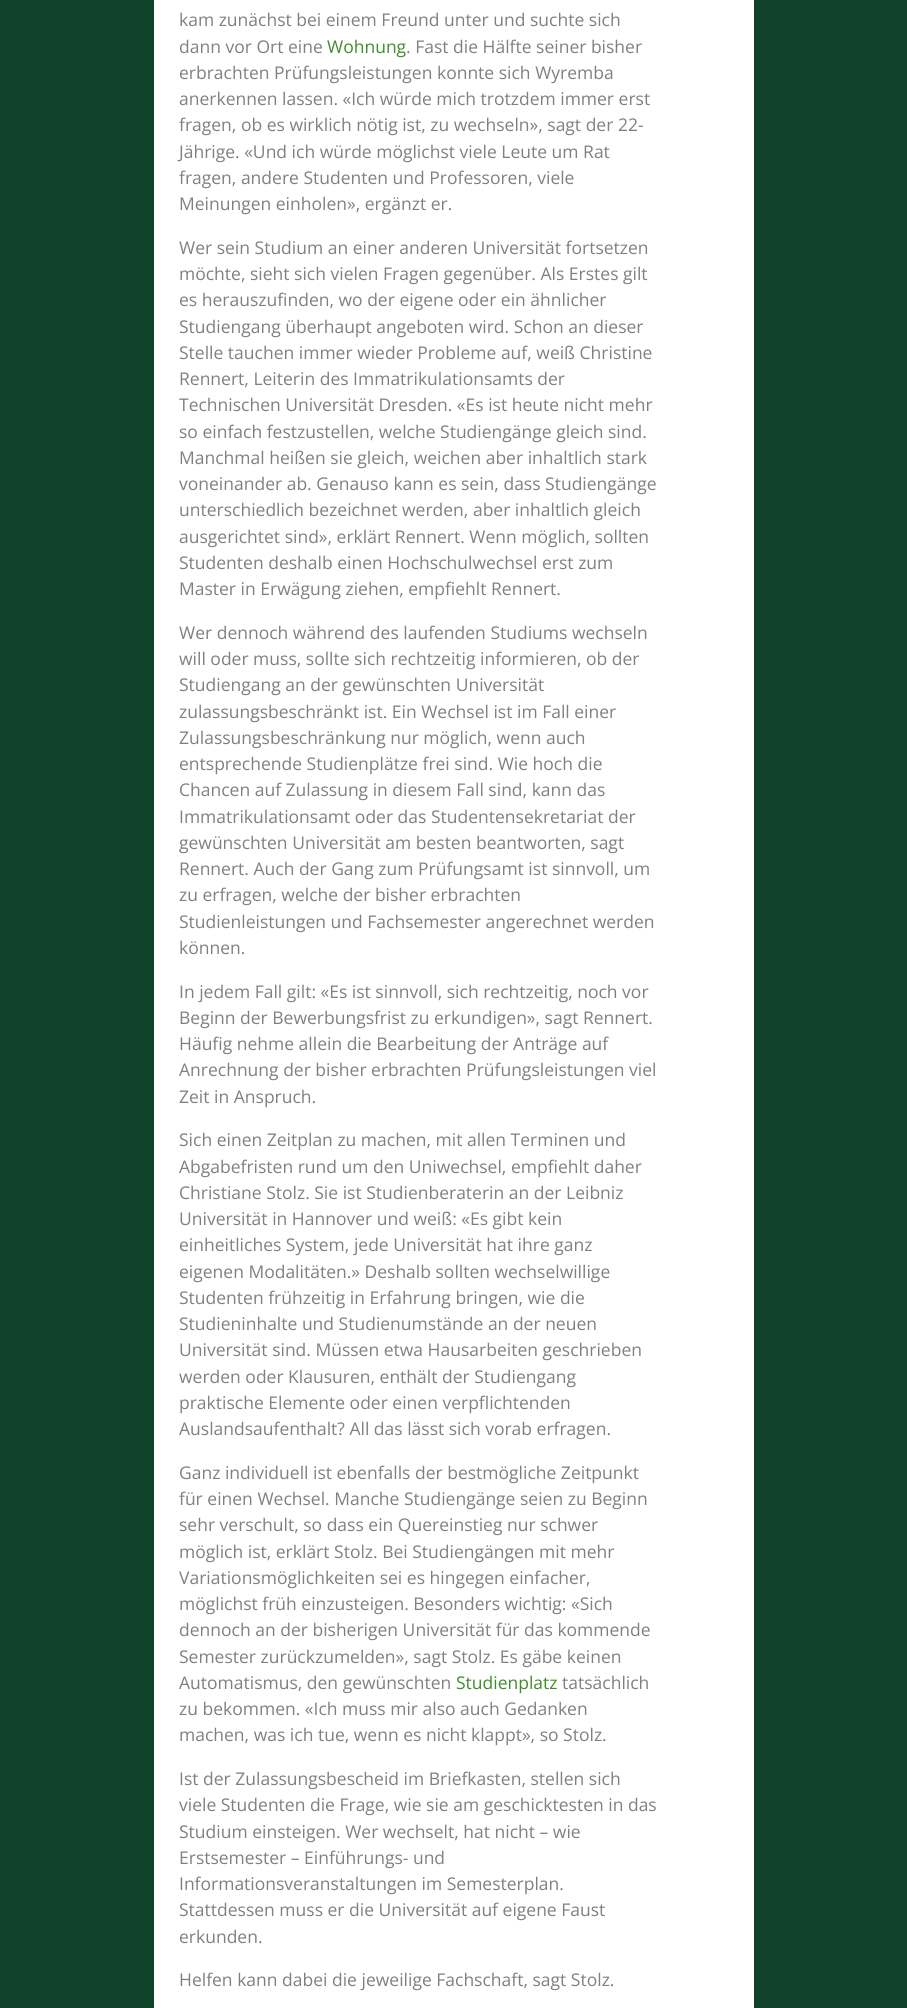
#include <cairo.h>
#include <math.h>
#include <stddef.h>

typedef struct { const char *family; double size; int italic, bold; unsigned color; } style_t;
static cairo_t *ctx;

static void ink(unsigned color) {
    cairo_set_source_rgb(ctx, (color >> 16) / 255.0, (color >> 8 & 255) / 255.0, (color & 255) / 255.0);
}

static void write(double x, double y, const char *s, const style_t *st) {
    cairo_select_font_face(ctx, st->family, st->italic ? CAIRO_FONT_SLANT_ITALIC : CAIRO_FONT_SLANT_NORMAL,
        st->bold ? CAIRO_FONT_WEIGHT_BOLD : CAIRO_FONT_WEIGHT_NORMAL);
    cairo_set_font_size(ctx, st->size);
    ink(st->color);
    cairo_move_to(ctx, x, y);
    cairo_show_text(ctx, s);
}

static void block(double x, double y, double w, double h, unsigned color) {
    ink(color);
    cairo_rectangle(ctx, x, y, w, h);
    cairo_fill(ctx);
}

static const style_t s1 = {"Open Sans", 17.5, 0, 0, 0x808080};
static const style_t s2 = {"Open Sans", 17.5, 0, 0, 0x408c2b};

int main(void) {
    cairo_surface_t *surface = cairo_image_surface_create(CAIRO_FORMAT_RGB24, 907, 2008);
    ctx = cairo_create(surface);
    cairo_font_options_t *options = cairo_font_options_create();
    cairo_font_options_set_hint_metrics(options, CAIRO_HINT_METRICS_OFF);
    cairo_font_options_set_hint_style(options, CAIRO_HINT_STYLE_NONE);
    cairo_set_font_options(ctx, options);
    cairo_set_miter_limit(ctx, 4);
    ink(0x0f4229);
    cairo_paint(ctx);
    block(154, 0, 600, 2008, 0xffffff);
    write(179, 26, "kam zunächst bei einem Freund unter und suchte sich", &s1);
    write(179, 53, "dann vor Ort eine", &s1);
    write(327, 53, "Wohnung", &s2);
    write(406, 53, ". Fast die Hälfte seiner bisher", &s1);
    write(179, 79, "erbrachten Prüfungsleistungen konnte sich Wyremba", &s1);
    write(179, 105, "anerkennen lassen. «Ich würde mich trotzdem immer erst", &s1);
    write(179, 131, "fragen, ob es wirklich nötig ist, zu wechseln», sagt der 22-", &s1);
    write(179, 158, "Jährige. «Und ich würde möglichst viele Leute um Rat", &s1);
    write(179, 184, "fragen, andere Studenten und Professoren, viele", &s1);
    write(179, 210, "Meinungen einholen», ergänzt er.", &s1);
    write(179, 254, "Wer sein Studium an einer anderen Universität fortsetzen", &s1);
    write(179, 280, "möchte, sieht sich vielen Fragen gegenüber. Als Erstes gilt", &s1);
    write(179, 306, "es herauszufinden, wo der eigene oder ein ähnlicher", &s1);
    write(179, 333, "Studiengang überhaupt angeboten wird. Schon an dieser", &s1);
    write(179, 359, "Stelle tauchen immer wieder Probleme auf, weiß Christine", &s1);
    write(179, 385, "Rennert, Leiterin des Immatrikulationsamts der", &s1);
    write(179, 411, "Technischen Universität Dresden. «Es ist heute nicht mehr", &s1);
    write(179, 438, "so einfach festzustellen, welche Studiengänge gleich sind.", &s1);
    write(179, 464, "Manchmal heißen sie gleich, weichen aber inhaltlich stark", &s1);
    write(179, 490, "voneinander ab. Genauso kann es sein, dass Studiengänge", &s1);
    write(179, 516, "unterschiedlich bezeichnet werden, aber inhaltlich gleich", &s1);
    write(179, 543, "ausgerichtet sind», erklärt Rennert. Wenn möglich, sollten", &s1);
    write(179, 569, "Studenten deshalb einen Hochschulwechsel erst zum", &s1);
    write(179, 595, "Master in Erwägung ziehen, empfiehlt Rennert.", &s1);
    write(179, 639, "Wer dennoch während des laufenden Studiums wechseln", &s1);
    write(179, 665, "will oder muss, sollte sich rechtzeitig informieren, ob der", &s1);
    write(179, 691, "Studiengang an der gewünschten Universität", &s1);
    write(179, 718, "zulassungsbeschränkt ist. Ein Wechsel ist im Fall einer", &s1);
    write(179, 744, "Zulassungsbeschränkung nur möglich, wenn auch", &s1);
    write(179, 770, "entsprechende Studienplätze frei sind. Wie hoch die", &s1);
    write(179, 796, "Chancen auf Zulassung in diesem Fall sind, kann das", &s1);
    write(179, 823, "Immatrikulationsamt oder das Studentensekretariat der", &s1);
    write(179, 849, "gewünschten Universität am besten beantworten, sagt", &s1);
    write(179, 875, "Rennert. Auch der Gang zum Prüfungsamt ist sinnvoll, um", &s1);
    write(179, 901, "zu erfragen, welche der bisher erbrachten", &s1);
    write(179, 928, "Studienleistungen und Fachsemester angerechnet werden", &s1);
    write(179, 954, "können.", &s1);
    write(179, 998, "In jedem Fall gilt: «Es ist sinnvoll, sich rechtzeitig, noch vor", &s1);
    write(179, 1024, "Beginn der Bewerbungsfrist zu erkundigen», sagt Rennert.", &s1);
    write(179, 1050, "Häufig nehme allein die Bearbeitung der Anträge auf", &s1);
    write(179, 1076, "Anrechnung der bisher erbrachten Prüfungsleistungen viel", &s1);
    write(179, 1103, "Zeit in Anspruch.", &s1);
    write(179, 1146, "Sich einen Zeitplan zu machen, mit allen Terminen und", &s1);
    write(179, 1173, "Abgabefristen rund um den Uniwechsel, empfiehlt daher", &s1);
    write(179, 1199, "Christiane Stolz. Sie ist Studienberaterin an der Leibniz", &s1);
    write(179, 1225, "Universität in Hannover und weiß: «Es gibt kein", &s1);
    write(179, 1251, "einheitliches System, jede Universität hat ihre ganz", &s1);
    write(179, 1278, "eigenen Modalitäten.» Deshalb sollten wechselwillige", &s1);
    write(179, 1304, "Studenten frühzeitig in Erfahrung bringen, wie die", &s1);
    write(179, 1330, "Studieninhalte und Studienumstände an der neuen", &s1);
    write(179, 1356, "Universität sind. Müssen etwa Hausarbeiten geschrieben", &s1);
    write(179, 1383, "werden oder Klausuren, enthält der Studiengang", &s1);
    write(179, 1409, "praktische Elemente oder einen verpflichtenden", &s1);
    write(179, 1435, "Auslandsaufenthalt? All das lässt sich vorab erfragen.", &s1);
    write(179, 1479, "Ganz individuell ist ebenfalls der bestmögliche Zeitpunkt", &s1);
    write(179, 1505, "für einen Wechsel. Manche Studiengänge seien zu Beginn", &s1);
    write(179, 1531, "sehr verschult, so dass ein Quereinstieg nur schwer", &s1);
    write(179, 1558, "möglich ist, erklärt Stolz. Bei Studiengängen mit mehr", &s1);
    write(179, 1584, "Variationsmöglichkeiten sei es hingegen einfacher,", &s1);
    write(179, 1610, "möglichst früh einzusteigen. Besonders wichtig: «Sich", &s1);
    write(179, 1636, "dennoch an der bisherigen Universität für das kommende", &s1);
    write(179, 1663, "Semester zurückzumelden», sagt Stolz. Es gäbe keinen", &s1);
    write(179, 1689, "Automatismus, den gewünschten", &s1);
    write(456, 1689, "Studienplatz", &s2);
    write(562, 1689, "tatsächlich", &s1);
    write(179, 1715, "zu bekommen. «Ich muss mir also auch Gedanken", &s1);
    write(179, 1741, "machen, was ich tue, wenn es nicht klappt», so Stolz.", &s1);
    write(179, 1785, "Ist der Zulassungsbescheid im Briefkasten, stellen sich", &s1);
    write(179, 1811, "viele Studenten die Frage, wie sie am geschicktesten in das", &s1);
    write(179, 1838, "Studium einsteigen. Wer wechselt, hat nicht – wie", &s1);
    write(179, 1864, "Erstsemester – Einführungs- und", &s1);
    write(179, 1890, "Informationsveranstaltungen im Semesterplan.", &s1);
    write(179, 1916, "Stattdessen muss er die Universität auf eigene Faust", &s1);
    write(179, 1943, "erkunden.", &s1);
    write(179, 1986, "Helfen kann dabei die jeweilige Fachschaft, sagt Stolz.", &s1);
    cairo_surface_write_to_png(surface, "screenshot.png");
    cairo_font_options_destroy(options);
    cairo_destroy(ctx);
    cairo_surface_destroy(surface);
    return 0;
}
